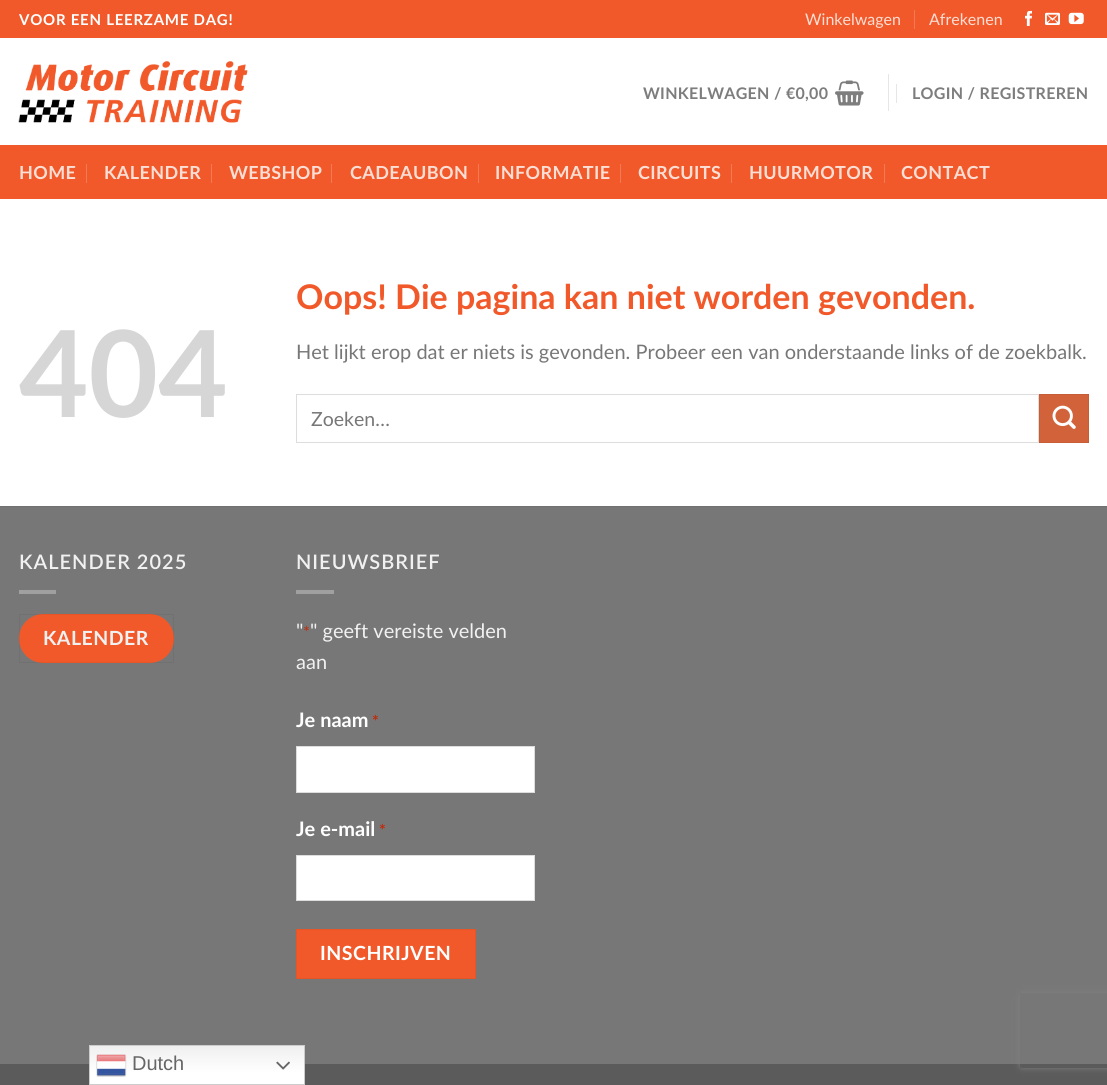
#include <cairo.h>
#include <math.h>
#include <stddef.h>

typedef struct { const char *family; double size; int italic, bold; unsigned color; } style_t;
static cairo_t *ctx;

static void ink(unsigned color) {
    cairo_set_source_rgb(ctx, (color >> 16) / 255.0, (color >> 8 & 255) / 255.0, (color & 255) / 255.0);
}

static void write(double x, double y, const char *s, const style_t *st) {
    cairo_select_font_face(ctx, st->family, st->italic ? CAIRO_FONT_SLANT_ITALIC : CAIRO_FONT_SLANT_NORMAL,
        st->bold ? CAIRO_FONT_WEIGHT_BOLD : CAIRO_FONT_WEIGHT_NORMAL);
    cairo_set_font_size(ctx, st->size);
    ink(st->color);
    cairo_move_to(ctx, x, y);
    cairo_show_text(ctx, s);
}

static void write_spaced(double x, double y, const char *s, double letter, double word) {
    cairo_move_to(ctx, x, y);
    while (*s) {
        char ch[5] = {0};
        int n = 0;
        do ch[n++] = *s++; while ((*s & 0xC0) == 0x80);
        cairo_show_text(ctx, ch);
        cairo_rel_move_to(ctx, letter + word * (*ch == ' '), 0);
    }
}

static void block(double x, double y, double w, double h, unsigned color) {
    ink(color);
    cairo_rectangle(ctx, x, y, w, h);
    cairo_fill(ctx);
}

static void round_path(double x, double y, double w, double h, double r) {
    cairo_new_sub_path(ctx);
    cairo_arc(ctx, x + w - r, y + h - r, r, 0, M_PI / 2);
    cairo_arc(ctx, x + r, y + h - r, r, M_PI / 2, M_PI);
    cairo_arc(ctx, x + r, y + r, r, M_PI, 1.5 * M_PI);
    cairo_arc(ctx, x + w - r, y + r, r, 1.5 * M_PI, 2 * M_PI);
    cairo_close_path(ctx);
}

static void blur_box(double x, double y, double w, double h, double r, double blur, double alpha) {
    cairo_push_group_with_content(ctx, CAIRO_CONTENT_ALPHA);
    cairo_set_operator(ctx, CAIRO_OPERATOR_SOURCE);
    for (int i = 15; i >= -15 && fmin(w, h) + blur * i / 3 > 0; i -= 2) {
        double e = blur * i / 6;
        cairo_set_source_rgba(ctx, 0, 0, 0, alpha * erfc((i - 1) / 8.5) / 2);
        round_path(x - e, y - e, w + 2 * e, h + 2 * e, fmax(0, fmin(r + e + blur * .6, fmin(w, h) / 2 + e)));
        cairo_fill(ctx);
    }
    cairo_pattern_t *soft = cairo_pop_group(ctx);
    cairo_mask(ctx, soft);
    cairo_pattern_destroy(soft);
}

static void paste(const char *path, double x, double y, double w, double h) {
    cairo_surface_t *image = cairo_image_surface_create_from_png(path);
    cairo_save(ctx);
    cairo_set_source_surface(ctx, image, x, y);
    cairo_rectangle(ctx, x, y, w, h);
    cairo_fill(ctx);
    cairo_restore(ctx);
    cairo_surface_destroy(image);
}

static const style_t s1 = {"Lato", 16, 0, 0, 0xfcded4};
static const style_t s2 = {"Lato", 120, 0, 1, 0xd6d6d6};
static const style_t s3 = {"Lato", 34, 0, 1, 0xf1592a};
static const style_t s4 = {"Lato", 20, 0, 0, 0x777777};
static const style_t s5 = {"Lato", 19.5, 0, 0, 0x777777};
static const style_t s6 = {"Lato", 20, 0, 0, 0xf1f1f1};
static const style_t s7 = {"Lato", 16, 0, 0, 0xc02b0a};
static const style_t s8 = {"Lato", 20, 0, 1, 0xffffff};
static const style_t s9 = {"Lato", 16, 0, 1, 0xc02b0a};
static const style_t s10 = {"Liberation Sans", 20, 0, 0, 0x666666};

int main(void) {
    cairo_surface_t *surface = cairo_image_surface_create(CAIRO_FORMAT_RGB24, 1107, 1085);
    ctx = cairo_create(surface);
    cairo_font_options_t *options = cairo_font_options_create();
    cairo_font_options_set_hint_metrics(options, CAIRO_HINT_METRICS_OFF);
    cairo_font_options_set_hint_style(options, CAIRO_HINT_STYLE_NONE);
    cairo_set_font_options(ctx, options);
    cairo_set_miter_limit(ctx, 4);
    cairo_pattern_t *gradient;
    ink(0xffffff);
    cairo_paint(ctx);
    block(0, 0, 1107, 38, 0xf1592a);
    cairo_select_font_face(ctx, "Lato", CAIRO_FONT_SLANT_NORMAL, CAIRO_FONT_WEIGHT_BOLD);
    cairo_set_font_size(ctx, 15);
    ink(0xffffff);
    write_spaced(19, 25, "VOOR EEN LEERZAME DAG!", 0.75, 0);
    write(805, 25, "Winkelwagen", &s1);
    block(914, 10, 1, 19, 0xf47a55);
    write(929, 25, "Afrekenen", &s1);
    paste("pic1.png", 1025, 10, 7, 16);
    paste("pic2.png", 1045, 12, 15, 13);
    paste("pic3.png", 1068, 12, 16, 13);
    paste("pic4.png", 18, 61, 230, 62);
    cairo_select_font_face(ctx, "Lato", CAIRO_FONT_SLANT_NORMAL, CAIRO_FONT_WEIGHT_BOLD);
    ink(0x7d7d7d);
    write_spaced(643, 99, "WINKELWAGEN / €0,00", 0.3, 0);
    paste("pic5.png", 835, 80, 29, 26);
    block(888, 74, 1, 37, 0xe6e6e6);
    block(896, 84, 1, 19, 0xe6e6e6);
    ink(0x7d7d7d);
    write_spaced(912, 99, "LOGIN / REGISTREREN", 0.3, 0);
    block(0, 145, 1107, 54, 0xf1592a);
    block(19, 145, 1070, 1, 0xe55c32);
    cairo_set_font_size(ctx, 18);
    ink(0xfcded4);
    write_spaced(19, 179, "HOME", 0.4, 0);
    block(86, 164, 1, 19, 0xf47a55);
    ink(0xfcded4);
    write_spaced(104, 179, "KALENDER", 0.4, 0);
    block(211, 164, 1, 19, 0xf47a55);
    ink(0xfcded4);
    write_spaced(229, 179, "WEBSHOP", 0.4, 0);
    block(331, 164, 1, 19, 0xf47a55);
    ink(0xfcded4);
    write_spaced(350, 179, "CADEAUBON", 0.4, 0);
    block(478, 164, 1, 19, 0xf47a55);
    ink(0xfcded4);
    write_spaced(495, 179, "INFORMATIE", 0.4, 0);
    block(620, 164, 1, 19, 0xf47a55);
    ink(0xfcded4);
    write_spaced(638, 179, "CIRCUITS", 0.4, 0);
    block(731, 164, 1, 19, 0xf47a55);
    ink(0xfcded4);
    write_spaced(749, 179, "HUURMOTOR", 0.4, 0);
    block(884, 164, 1, 19, 0xf47a55);
    ink(0xfcded4);
    write_spaced(901, 179, "CONTACT", 0.4, 0);
    write(19, 417, "404", &s2);
    write(296, 309, "Oops! Die pagina kan niet worden gevonden.", &s3);
    write(296, 359, "Het lijkt erop dat er niets is gevonden. Probeer een van onderstaande links of de zoekbalk.", &s4);
    cairo_rectangle(ctx, 296.5, 394.5, 742, 48);
    ink(0xdddddd);
    cairo_set_line_width(ctx, 1);
    cairo_stroke(ctx);
    write(311, 426, "Zoeken…", &s5);
    ink(0xd1623a);
    cairo_rectangle(ctx, 1039.5, 394.5, 49, 48);
    cairo_fill_preserve(ctx);
    ink(0xc75d37);
    cairo_stroke(ctx);
    paste("pic6.png", 1052, 405, 24, 24);
    block(0, 507, 1107, 557, 0x777777);
    block(0, 506, 1107, 1, 0x717171);
    cairo_select_font_face(ctx, "Lato SemiBold", CAIRO_FONT_SLANT_NORMAL, CAIRO_FONT_WEIGHT_NORMAL);
    cairo_set_font_size(ctx, 20);
    ink(0xf1f1f1);
    write_spaced(19, 569, "KALENDER 2025", 1, 0);
    block(19, 590, 37, 4, 0xa0a0a0);
    ink(0xf1592a);
    round_path(19, 614, 155, 49, 24.5);
    cairo_fill(ctx);
    cairo_rectangle(ctx, 19.5, 614.5, 154, 48);
    cairo_set_source_rgba(ctx, 0, 0, 0, 0.05);
    cairo_stroke(ctx);
    cairo_select_font_face(ctx, "Lato", CAIRO_FONT_SLANT_NORMAL, CAIRO_FONT_WEIGHT_BOLD);
    cairo_set_font_size(ctx, 19.5);
    ink(0xf1f1f1);
    write_spaced(43, 645, "KALENDER", 0.5, 0);
    cairo_select_font_face(ctx, "Lato SemiBold", CAIRO_FONT_SLANT_NORMAL, CAIRO_FONT_WEIGHT_NORMAL);
    cairo_set_font_size(ctx, 20);
    write_spaced(296, 569, "NIEUWSBRIEF", 1, 0);
    block(296, 590, 38, 4, 0xa0a0a0);
    write(296, 638, "\"", &s6);
    write(303, 638, "*", &s7);
    write(310, 638, "\" geeft vereiste velden", &s6);
    write(296, 669, "aan", &s6);
    write(296, 727, "Je naam", &s8);
    write(372, 727, "*", &s9);
    ink(0xffffff);
    cairo_rectangle(ctx, 296.5, 746.5, 238, 46);
    cairo_fill_preserve(ctx);
    ink(0xdddddd);
    cairo_stroke(ctx);
    write(296, 836, "Je e-mail", &s8);
    write(379, 836, "*", &s9);
    ink(0xffffff);
    cairo_rectangle(ctx, 296.5, 855.5, 238, 45);
    cairo_fill_preserve(ctx);
    ink(0xdddddd);
    cairo_stroke(ctx);
    ink(0xf1592a);
    cairo_rectangle(ctx, 296.5, 929.5, 179, 49);
    cairo_fill_preserve(ctx);
    ink(0xe55528);
    cairo_stroke(ctx);
    cairo_set_font_size(ctx, 19.5);
    ink(0xffffff);
    write_spaced(320, 960, "INSCHRIJVEN", 0.5, 0);
    block(0, 1064, 1107, 21, 0x5b5b5b);
    gradient = cairo_pattern_create_linear(197, 1045, 197, 1085);
    cairo_pattern_add_color_stop_rgba(gradient, 0, 0.937, 0.937, 0.937, 1);
    cairo_pattern_add_color_stop_rgba(gradient, 0.7, 1, 1, 1, 1);
    cairo_set_source(ctx, gradient);
    cairo_pattern_destroy(gradient);
    cairo_rectangle(ctx, 90, 1046, 214, 38);
    cairo_fill(ctx);
    cairo_rectangle(ctx, 89.5, 1045.5, 215, 39);
    ink(0xcccccc);
    cairo_stroke(ctx);
    paste("pic7.png", 96, 1054, 31, 23);
    write(132, 1070, "Dutch", &s10);
    paste("pic8.png", 276, 1061, 14, 9);
    cairo_save(ctx);
    cairo_set_fill_rule(ctx, CAIRO_FILL_RULE_EVEN_ODD);
    cairo_new_path(ctx);
    cairo_move_to(ctx, 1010, 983);
    cairo_line_to(ctx, 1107, 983);
    cairo_line_to(ctx, 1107, 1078);
    cairo_line_to(ctx, 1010, 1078);
    cairo_close_path(ctx);
    cairo_move_to(ctx, 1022.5, 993);
    cairo_line_to(ctx, 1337.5, 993);
    cairo_curve_to(ctx, 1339, 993, 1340, 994, 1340, 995.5);
    cairo_line_to(ctx, 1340, 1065.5);
    cairo_curve_to(ctx, 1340, 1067, 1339, 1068, 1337.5, 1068);
    cairo_line_to(ctx, 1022.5, 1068);
    cairo_curve_to(ctx, 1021, 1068, 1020, 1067, 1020, 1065.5);
    cairo_line_to(ctx, 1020, 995.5);
    cairo_curve_to(ctx, 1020, 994, 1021, 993, 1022.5, 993);
    cairo_close_path(ctx);
    cairo_clip(ctx);
    ink(0x808080);
    blur_box(1020, 993, 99, 75, 2.5, 3, 1);
    cairo_restore(ctx);
    cairo_surface_write_to_png(surface, "screenshot.png");
    cairo_font_options_destroy(options);
    cairo_destroy(ctx);
    cairo_surface_destroy(surface);
    return 0;
}
